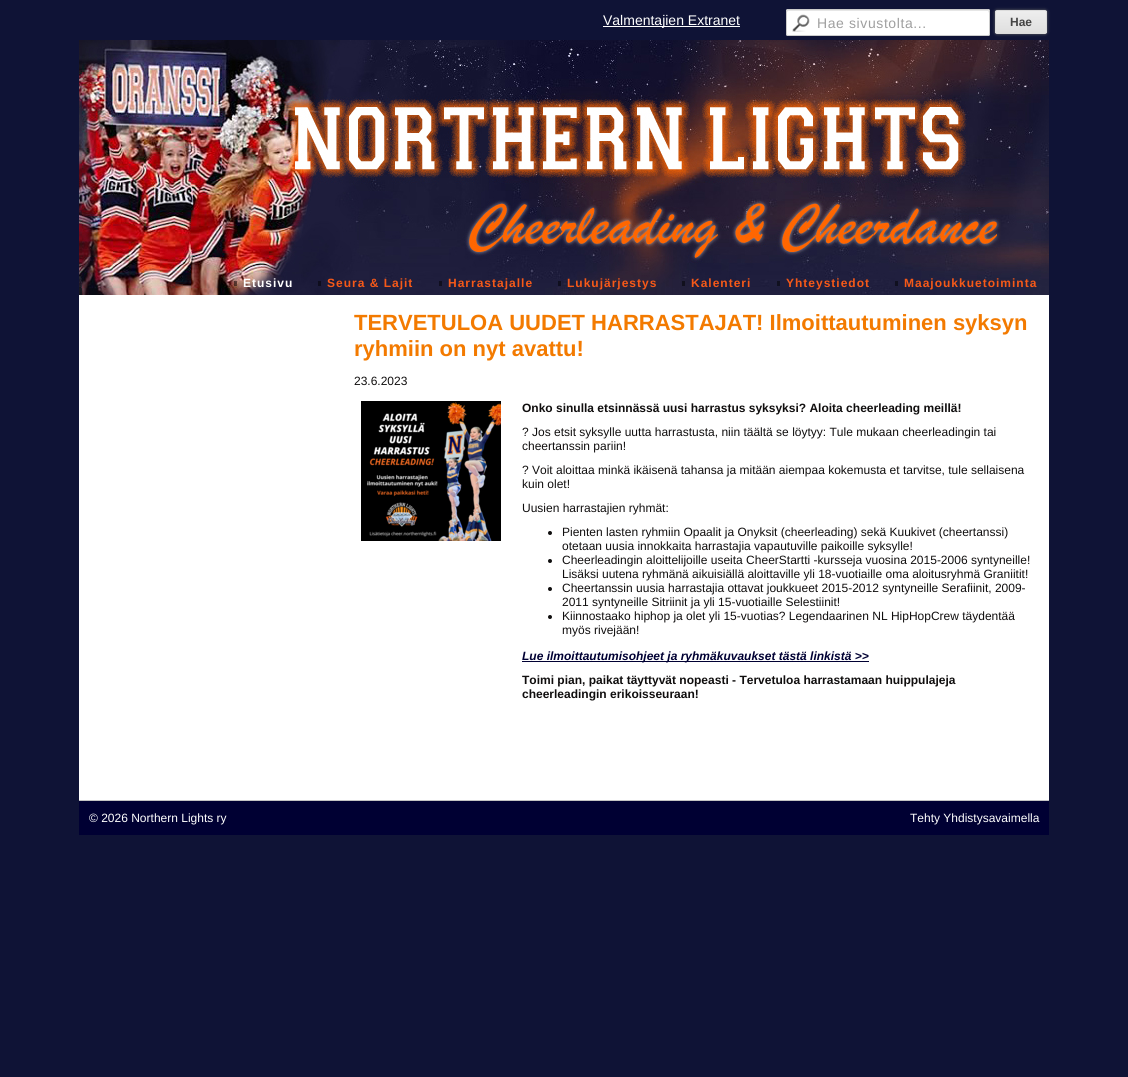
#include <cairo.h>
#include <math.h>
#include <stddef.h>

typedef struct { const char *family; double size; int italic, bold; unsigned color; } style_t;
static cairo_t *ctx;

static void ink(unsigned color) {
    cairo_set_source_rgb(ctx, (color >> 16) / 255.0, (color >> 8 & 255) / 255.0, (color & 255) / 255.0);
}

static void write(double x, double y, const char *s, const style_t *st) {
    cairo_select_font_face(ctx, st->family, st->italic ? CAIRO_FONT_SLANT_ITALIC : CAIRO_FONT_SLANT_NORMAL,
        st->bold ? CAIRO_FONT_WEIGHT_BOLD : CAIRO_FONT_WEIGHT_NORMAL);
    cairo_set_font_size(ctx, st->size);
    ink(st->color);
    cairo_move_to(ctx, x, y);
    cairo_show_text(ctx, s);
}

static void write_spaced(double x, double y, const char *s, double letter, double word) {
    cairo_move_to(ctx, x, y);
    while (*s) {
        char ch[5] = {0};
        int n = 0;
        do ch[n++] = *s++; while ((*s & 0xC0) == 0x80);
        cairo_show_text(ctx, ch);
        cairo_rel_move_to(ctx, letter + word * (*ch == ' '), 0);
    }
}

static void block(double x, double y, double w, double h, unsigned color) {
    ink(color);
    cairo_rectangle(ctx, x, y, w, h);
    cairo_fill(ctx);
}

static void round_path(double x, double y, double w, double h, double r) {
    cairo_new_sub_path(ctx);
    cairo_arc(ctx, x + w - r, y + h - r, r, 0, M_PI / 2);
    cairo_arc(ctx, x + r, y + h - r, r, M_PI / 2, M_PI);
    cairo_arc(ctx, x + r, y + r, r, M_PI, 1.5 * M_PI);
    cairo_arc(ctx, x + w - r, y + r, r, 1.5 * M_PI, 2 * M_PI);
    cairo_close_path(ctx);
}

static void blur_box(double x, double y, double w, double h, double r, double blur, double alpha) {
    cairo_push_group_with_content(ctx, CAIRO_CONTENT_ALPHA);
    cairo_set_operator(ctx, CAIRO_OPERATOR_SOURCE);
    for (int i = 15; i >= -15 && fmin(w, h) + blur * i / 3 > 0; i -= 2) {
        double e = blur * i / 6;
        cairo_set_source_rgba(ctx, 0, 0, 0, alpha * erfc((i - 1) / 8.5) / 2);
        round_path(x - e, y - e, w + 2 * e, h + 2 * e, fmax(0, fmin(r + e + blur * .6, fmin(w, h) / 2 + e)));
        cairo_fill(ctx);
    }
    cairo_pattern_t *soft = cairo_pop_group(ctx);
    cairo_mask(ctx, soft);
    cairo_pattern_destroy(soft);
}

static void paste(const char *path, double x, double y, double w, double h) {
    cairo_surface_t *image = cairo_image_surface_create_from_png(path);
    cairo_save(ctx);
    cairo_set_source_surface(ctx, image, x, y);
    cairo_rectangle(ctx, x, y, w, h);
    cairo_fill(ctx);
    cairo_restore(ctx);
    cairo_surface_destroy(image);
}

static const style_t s1 = {"Liberation Sans", 14, 0, 0, 0xffffff};
static const style_t s2 = {"Liberation Sans", 12, 0, 1, 0x444444};
static const style_t s3 = {"Liberation Sans", 22, 0, 1, 0xf37a00};
static const style_t s4 = {"Liberation Sans", 12, 0, 0, 0x100e0e};
static const style_t s5 = {"Liberation Sans", 12, 0, 1, 0x100e0e};
static const style_t s6 = {"Liberation Sans", 12, 1, 1, 0x000033};
static const style_t s7 = {"Liberation Sans", 12, 0, 0, 0xffffff};

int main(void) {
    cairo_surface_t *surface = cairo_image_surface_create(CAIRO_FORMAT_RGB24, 1128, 1077);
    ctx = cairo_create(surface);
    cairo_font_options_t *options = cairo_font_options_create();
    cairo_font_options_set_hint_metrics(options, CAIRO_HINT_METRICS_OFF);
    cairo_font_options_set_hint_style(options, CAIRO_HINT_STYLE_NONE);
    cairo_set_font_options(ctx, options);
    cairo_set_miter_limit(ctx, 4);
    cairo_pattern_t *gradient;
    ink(0x0f1336);
    cairo_paint(ctx);
    block(603, 26, 137, 1, 0xffffff);
    write(603, 25, "Valmentajien Extranet", &s1);
    round_path(786, 9, 204, 27, 2);
    cairo_fill(ctx);
    paste("pic1.png", 792, 14, 18, 18);
    ink(0xe6e6e6);
    cairo_new_path(ctx);
    cairo_move_to(ctx, 788, 11);
    cairo_line_to(ctx, 988, 11);
    cairo_line_to(ctx, 989, 13);
    cairo_curve_to(ctx, 989, 12, 989, 10, 988, 10);
    cairo_line_to(ctx, 787, 10);
    cairo_line_to(ctx, 787, 12);
    cairo_close_path(ctx);
    cairo_fill(ctx);
    round_path(786.5, 9.5, 203, 26, 1.5);
    ink(0xcccccc);
    cairo_set_line_width(ctx, 1);
    cairo_stroke(ctx);
    ink(0x9f9f9f);
    write_spaced(817, 28, "Hae sivustolta...", 0.6, 0);
    ink(0x666666);
    blur_box(995, 10, 52, 24, 2, 1.5, 1);
    cairo_save(ctx);
    round_path(995, 10, 52, 24, 2);
    cairo_clip(ctx);
    gradient = cairo_pattern_create_linear(996, 11, 996, 33);
    cairo_pattern_add_color_stop_rgba(gradient, 0.05, 0.929, 0.929, 0.929, 1);
    cairo_pattern_add_color_stop_rgba(gradient, 1, 0.875, 0.875, 0.875, 1);
    cairo_set_source(ctx, gradient);
    cairo_pattern_destroy(gradient);
    cairo_rectangle(ctx, 995, 11, 52, 22);
    cairo_fill(ctx);
    cairo_restore(ctx);
    round_path(995.5, 10.5, 51, 23, 1.5);
    ink(0xdcdcdc);
    cairo_stroke(ctx);
    write(1010, 26, "Hae", &s2);
    paste("pic2.png", 79, 40, 970, 255);
    cairo_set_source_rgba(ctx, 0, 0, 0, 0.5);
    cairo_rectangle(ctx, 234, 281, 3, 5);
    cairo_fill(ctx);
    ink(0xffffff);
    write_spaced(243, 287, "Etusivu", 1, 0);
    block(318, 281, 3, 5, 0x0e0d1d);
    ink(0xf65918);
    write_spaced(327, 287, "Seura & Lajit", 1, 0);
    block(439, 281, 3, 5, 0x100f1f);
    ink(0xf65918);
    write_spaced(448, 287, "Harrastajalle", 1, 0);
    cairo_set_source_rgba(ctx, 0, 0, 0, 0.5);
    cairo_rectangle(ctx, 558, 281, 3, 5);
    cairo_fill(ctx);
    ink(0xf65918);
    write_spaced(567, 287, "Lukujärjestys", 1, 0);
    block(682, 281, 3, 5, 0x11101d);
    ink(0xf65918);
    write_spaced(691, 287, "Kalenteri", 1, 0);
    block(777, 281, 3, 5, 0x10101f);
    ink(0xf65918);
    write_spaced(786, 287, "Yhteystiedot", 1, 0);
    block(895, 281, 3, 5, 0x10101f);
    ink(0xf65918);
    write_spaced(904, 287, "Maajoukkuetoiminta", 1, 0);
    block(79, 295, 970, 505, 0xffffff);
    write(354, 330, "TERVETULOA UUDET HARRASTAJAT! Ilmoittautuminen syksyn", &s3);
    write(354, 356, "ryhmiin on nyt avattu!", &s3);
    write(354, 385, "23.6.2023", &s4);
    paste("pic3.png", 361, 401, 140, 140);
    write(522, 412, "Onko sinulla etsinnässä uusi harrastus syksyksi? Aloita cheerleading meillä!", &s5);
    write(522, 436, "? Jos etsit syksylle uutta harrastusta, niin täältä se löytyy: Tule mukaan cheerleadingin tai", &s4);
    write(522, 450, "cheertanssin pariin!", &s4);
    write(522, 474, "? Voit aloittaa minkä ikäisenä tahansa ja mitään aiempaa kokemusta et tarvitse, tule sellaisena", &s4);
    write(522, 488, "kuin olet!", &s4);
    write(522, 512, "Uusien harrastajien ryhmät:", &s4);
    cairo_new_path(ctx);
    cairo_arc(ctx, 550, 533, 2, 0, 2 * M_PI);
    cairo_fill(ctx);
    write(562, 536, "Pienten lasten ryhmiin Opaalit ja Onyksit (cheerleading) sekä Kuukivet (cheertanssi)", &s4);
    write(562, 550, "otetaan uusia innokkaita harrastajia vapautuville paikoille syksylle!", &s4);
    cairo_new_path(ctx);
    cairo_arc(ctx, 550, 561, 2, 0, 2 * M_PI);
    cairo_fill(ctx);
    write(562, 564, "Cheerleadingin aloittelijoille useita CheerStartti -kursseja vuosina 2015-2006 syntyneille!", &s4);
    write(562, 578, "Lisäksi uutena ryhmänä aikuisiällä aloittaville yli 18-vuotiaille oma aloitusryhmä Graniitit!", &s4);
    cairo_new_path(ctx);
    cairo_arc(ctx, 550, 589, 2, 0, 2 * M_PI);
    cairo_fill(ctx);
    write(562, 592, "Cheertanssin uusia harrastajia ottavat joukkueet 2015-2012 syntyneille Serafiinit, 2009-", &s4);
    write(562, 606, "2011 syntyneille Sitriinit ja yli 15-vuotiaille Selestiinit!", &s4);
    cairo_new_path(ctx);
    cairo_arc(ctx, 550, 617, 2, 0, 2 * M_PI);
    cairo_fill(ctx);
    write(562, 620, "Kiinnostaako hiphop ja olet yli 15-vuotias? Legendaarinen NL HipHopCrew täydentää", &s4);
    write(562, 634, "myös rivejään!", &s4);
    block(522, 661, 347, 1, 0x000033);
    write(522, 660, "Lue ilmoittautumisohjeet ja ryhmäkuvaukset tästä linkistä >>", &s6);
    write(522, 684, "Toimi pian, paikat täyttyvät nopeasti - Tervetuloa harrastamaan huippulajeja", &s5);
    write(522, 698, "cheerleadingin erikoisseuraan!", &s5);
    block(79, 801, 970, 34, 0x000033);
    block(79, 800, 970, 1, 0xc4c4c4);
    write(89, 822, "© 2026 Northern Lights ry", &s7);
    write(910, 822, "Tehty Yhdistysavaimella", &s7);
    cairo_surface_write_to_png(surface, "screenshot.png");
    cairo_font_options_destroy(options);
    cairo_destroy(ctx);
    cairo_surface_destroy(surface);
    return 0;
}
